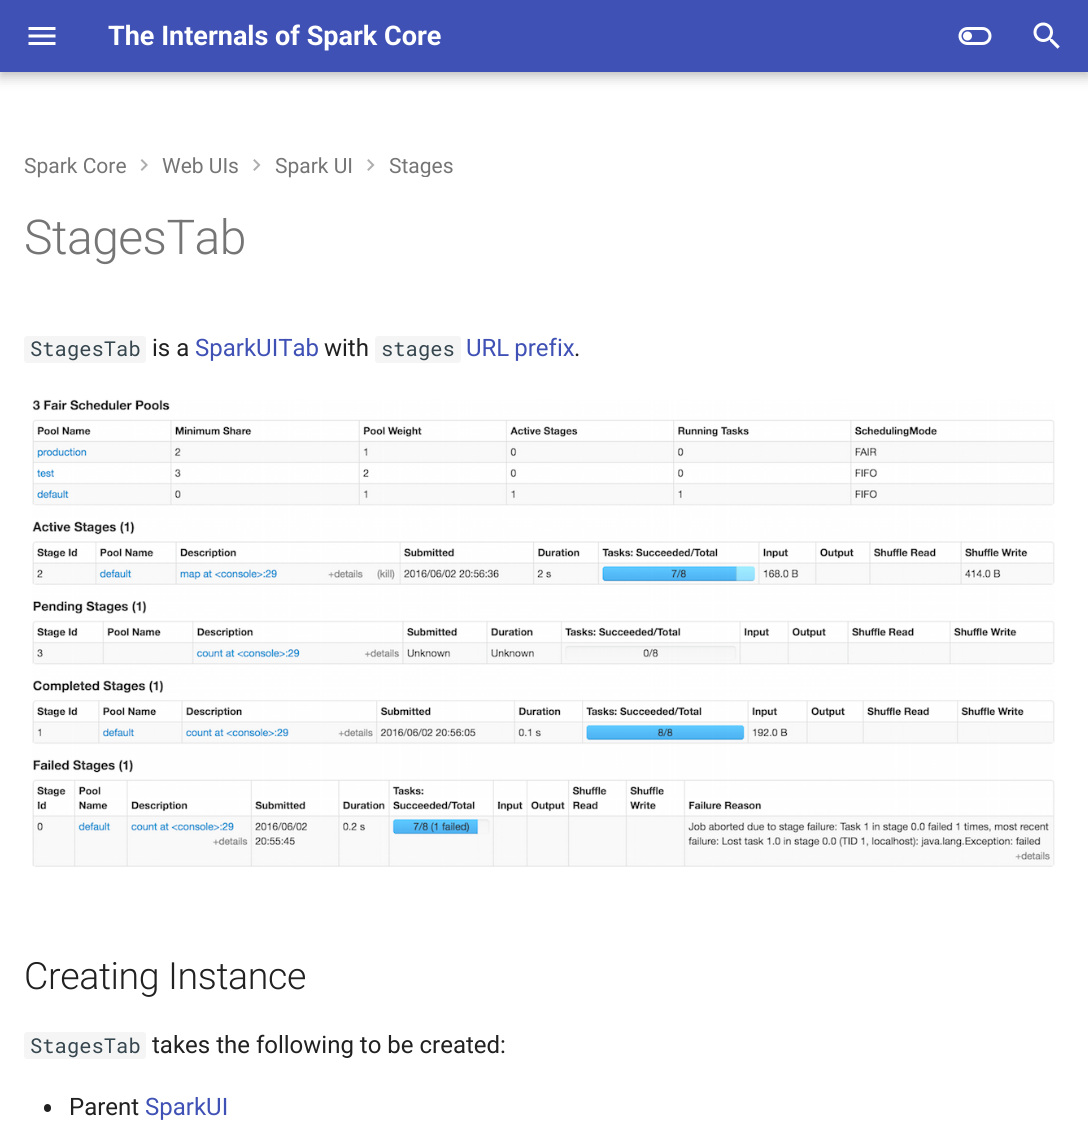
#include <cairo.h>
#include <math.h>
#include <stddef.h>

typedef struct { const char *family; double size; int italic, bold; unsigned color; } style_t;
static cairo_t *ctx;

static void ink(unsigned color) {
    cairo_set_source_rgb(ctx, (color >> 16) / 255.0, (color >> 8 & 255) / 255.0, (color & 255) / 255.0);
}

static void write(double x, double y, const char *s, const style_t *st) {
    cairo_select_font_face(ctx, st->family, st->italic ? CAIRO_FONT_SLANT_ITALIC : CAIRO_FONT_SLANT_NORMAL,
        st->bold ? CAIRO_FONT_WEIGHT_BOLD : CAIRO_FONT_WEIGHT_NORMAL);
    cairo_set_font_size(ctx, st->size);
    ink(st->color);
    cairo_move_to(ctx, x, y);
    cairo_show_text(ctx, s);
}

static void write_spaced(double x, double y, const char *s, double letter, double word) {
    cairo_move_to(ctx, x, y);
    while (*s) {
        char ch[5] = {0};
        int n = 0;
        do ch[n++] = *s++; while ((*s & 0xC0) == 0x80);
        cairo_show_text(ctx, ch);
        cairo_rel_move_to(ctx, letter + word * (*ch == ' '), 0);
    }
}

static void block(double x, double y, double w, double h, unsigned color) {
    ink(color);
    cairo_rectangle(ctx, x, y, w, h);
    cairo_fill(ctx);
}

static void round_path(double x, double y, double w, double h, double r) {
    cairo_new_sub_path(ctx);
    cairo_arc(ctx, x + w - r, y + h - r, r, 0, M_PI / 2);
    cairo_arc(ctx, x + r, y + h - r, r, M_PI / 2, M_PI);
    cairo_arc(ctx, x + r, y + r, r, M_PI, 1.5 * M_PI);
    cairo_arc(ctx, x + w - r, y + r, r, 1.5 * M_PI, 2 * M_PI);
    cairo_close_path(ctx);
}

static void blur_box(double x, double y, double w, double h, double r, double blur, double alpha) {
    cairo_push_group_with_content(ctx, CAIRO_CONTENT_ALPHA);
    cairo_set_operator(ctx, CAIRO_OPERATOR_SOURCE);
    for (int i = 15; i >= -15 && fmin(w, h) + blur * i / 3 > 0; i -= 2) {
        double e = blur * i / 6;
        cairo_set_source_rgba(ctx, 0, 0, 0, alpha * erfc((i - 1) / 8.5) / 2);
        round_path(x - e, y - e, w + 2 * e, h + 2 * e, fmax(0, fmin(r + e + blur * .6, fmin(w, h) / 2 + e)));
        cairo_fill(ctx);
    }
    cairo_pattern_t *soft = cairo_pop_group(ctx);
    cairo_mask(ctx, soft);
    cairo_pattern_destroy(soft);
}

static void paste(const char *path, double x, double y, double w, double h) {
    cairo_surface_t *image = cairo_image_surface_create_from_png(path);
    cairo_save(ctx);
    cairo_set_source_surface(ctx, image, x, y);
    cairo_rectangle(ctx, x, y, w, h);
    cairo_fill(ctx);
    cairo_restore(ctx);
    cairo_surface_destroy(image);
}

static const style_t s1 = {"Roboto", 27, 0, 1, 0xffffff};
static const style_t s2 = {"Roboto", 21, 0, 0, 0x757575};
static const style_t s3 = {"Roboto Mono", 20.5, 0, 0, 0x36464e};
static const style_t s4 = {"Roboto", 24, 0, 0, 0x212121};
static const style_t s5 = {"Roboto", 24, 0, 0, 0x4051b5};

int main(void) {
    cairo_surface_t *surface = cairo_image_surface_create(CAIRO_FORMAT_RGB24, 1088, 1140);
    ctx = cairo_create(surface);
    cairo_font_options_t *options = cairo_font_options_create();
    cairo_font_options_set_hint_metrics(options, CAIRO_HINT_METRICS_OFF);
    cairo_font_options_set_hint_style(options, CAIRO_HINT_STYLE_NONE);
    cairo_set_font_options(ctx, options);
    cairo_set_miter_limit(ctx, 4);
    ink(0xffffff);
    cairo_paint(ctx);
    ink(0x000000);
    blur_box(0, 6, 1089, 72, 0, 6, 0.2);
    blur_box(0, 0, 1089, 72, 0, 3, 0.1);
    block(0, 0, 1088, 72, 0x4051b5);
    paste("pic1.png", 28, 27, 28, 18);
    write(108, 45, "The Internals of Spark Core", &s1);
    paste("pic2.png", 958, 27, 34, 18);
    paste("pic3.png", 1033, 22, 27, 27);
    write(24, 173, "Spark Core", &s2);
    paste("pic4.png", 140, 159, 8, 12);
    write(162, 173, "Web UIs", &s2);
    paste("pic5.png", 253, 159, 8, 12);
    write(275, 173, "Spark UI", &s2);
    paste("pic5.png", 367, 159, 8, 12);
    cairo_save(ctx);
    cairo_rectangle(ctx, 389, 153, 64, 24);
    cairo_clip(ctx);
    write(389, 173, "Stages", &s2);
    cairo_restore(ctx);
    cairo_select_font_face(ctx, "Roboto Light", CAIRO_FONT_SLANT_NORMAL, CAIRO_FONT_WEIGHT_NORMAL);
    cairo_set_font_size(ctx, 48);
    write_spaced(24, 254, "StagesTab", -0.5, 0);
    ink(0xf5f5f5);
    round_path(24, 336, 122, 27, 3);
    cairo_fill(ctx);
    write(30, 356, "StagesTab", &s3);
    write(152, 356, "is a", &s4);
    write(195, 356, "SparkUITab", &s5);
    write(324, 356, "with", &s4);
    ink(0xf5f5f5);
    round_path(375, 336, 86, 27, 3);
    cairo_fill(ctx);
    write(381, 356, "stages", &s3);
    cairo_select_font_face(ctx, "Roboto", CAIRO_FONT_SLANT_NORMAL, CAIRO_FONT_WEIGHT_NORMAL);
    cairo_set_font_size(ctx, 24);
    ink(0x4051b5);
    write_spaced(466, 356, "URL prefix", 0, -1);
    write(574, 356, ".", &s4);
    paste("pic6.png", 32, 399, 1023, 468);
    cairo_select_font_face(ctx, "Roboto Light", CAIRO_FONT_SLANT_NORMAL, CAIRO_FONT_WEIGHT_NORMAL);
    cairo_set_font_size(ctx, 37.5);
    write_spaced(24, 989, "Creating Instance", -0.4, 0);
    ink(0xf5f5f5);
    round_path(24, 1032, 122, 27, 3);
    cairo_fill(ctx);
    write(30, 1053, "StagesTab", &s3);
    write(152, 1053, "takes the following to be created:", &s4);
    round_path(44, 1104, 7, 8, 3.5);
    cairo_fill(ctx);
    write(69, 1115, "Parent", &s4);
    write(145, 1115, "SparkUI", &s5);
    cairo_surface_write_to_png(surface, "screenshot.png");
    cairo_font_options_destroy(options);
    cairo_destroy(ctx);
    cairo_surface_destroy(surface);
    return 0;
}
